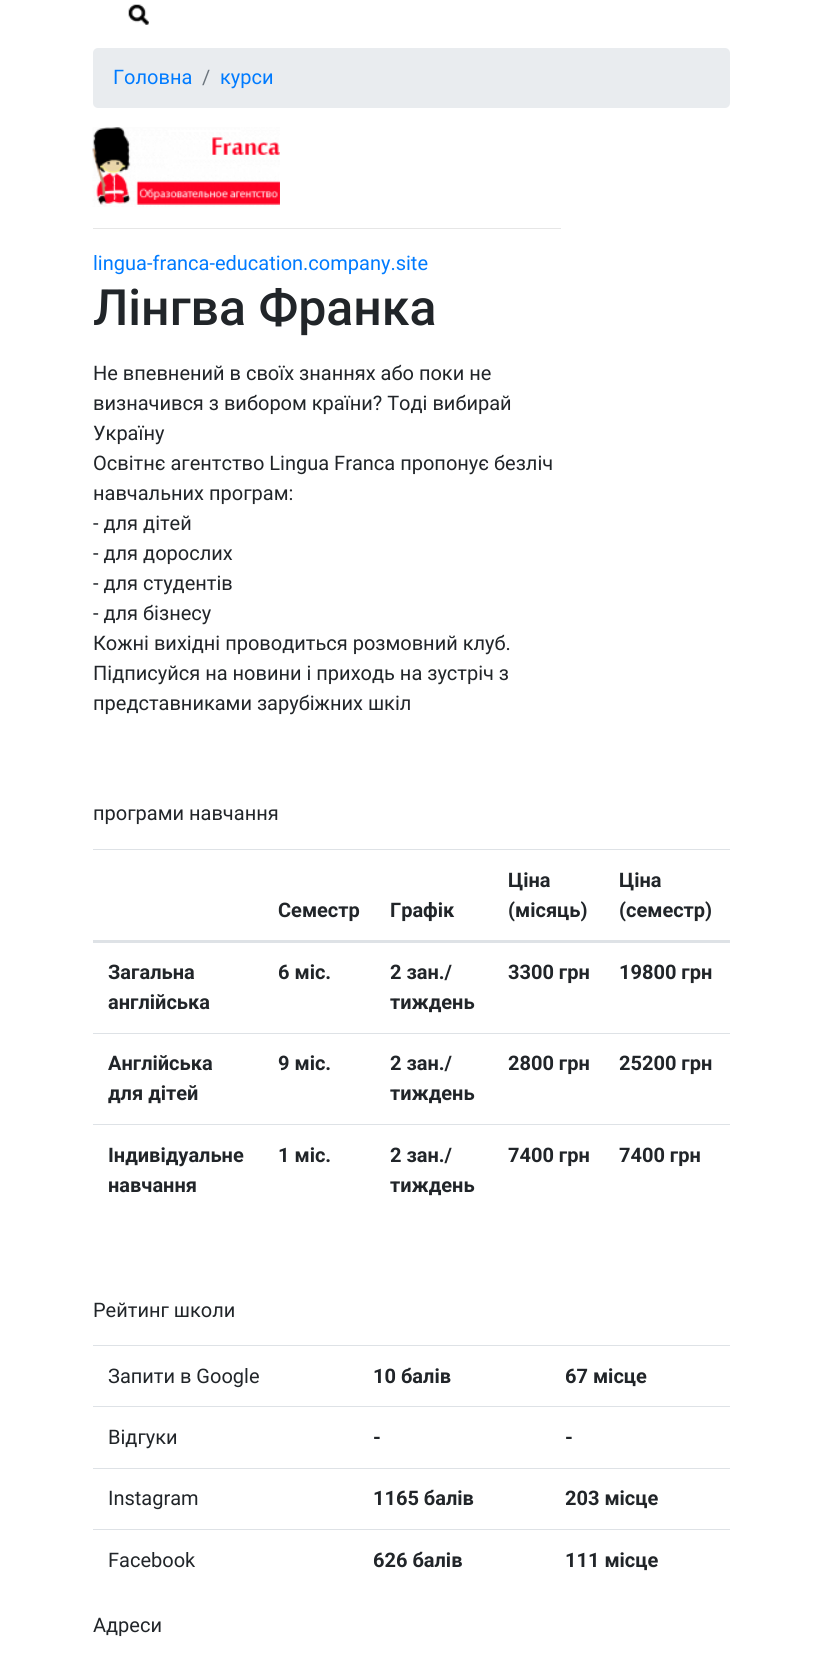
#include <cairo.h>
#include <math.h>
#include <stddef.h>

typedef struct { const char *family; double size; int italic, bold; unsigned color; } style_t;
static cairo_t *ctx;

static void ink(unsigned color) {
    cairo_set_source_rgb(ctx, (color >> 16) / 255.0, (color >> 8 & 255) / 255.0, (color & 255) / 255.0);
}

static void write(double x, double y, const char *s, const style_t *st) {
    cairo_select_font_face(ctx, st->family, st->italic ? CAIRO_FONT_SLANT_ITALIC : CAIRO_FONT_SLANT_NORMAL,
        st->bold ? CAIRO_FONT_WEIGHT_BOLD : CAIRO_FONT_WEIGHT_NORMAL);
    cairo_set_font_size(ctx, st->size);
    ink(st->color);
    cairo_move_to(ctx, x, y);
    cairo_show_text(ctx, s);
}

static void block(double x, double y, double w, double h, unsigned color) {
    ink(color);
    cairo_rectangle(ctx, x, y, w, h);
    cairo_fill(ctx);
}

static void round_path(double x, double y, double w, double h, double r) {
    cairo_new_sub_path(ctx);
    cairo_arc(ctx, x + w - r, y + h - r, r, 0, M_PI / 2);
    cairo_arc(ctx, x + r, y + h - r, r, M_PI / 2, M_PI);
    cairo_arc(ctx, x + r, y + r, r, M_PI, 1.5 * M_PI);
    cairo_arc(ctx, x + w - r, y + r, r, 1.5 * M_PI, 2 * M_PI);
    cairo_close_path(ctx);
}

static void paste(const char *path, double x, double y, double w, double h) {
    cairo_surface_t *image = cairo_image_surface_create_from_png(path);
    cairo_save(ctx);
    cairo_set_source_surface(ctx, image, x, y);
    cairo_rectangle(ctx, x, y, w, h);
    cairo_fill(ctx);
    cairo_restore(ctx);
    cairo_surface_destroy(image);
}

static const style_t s1 = {"Roboto", 20, 0, 0, 0x007bff};
static const style_t s2 = {"Roboto", 20, 0, 0, 0x6c757d};
static const style_t s3 = {"Roboto Medium", 50, 0, 0, 0x212529};
static const style_t s4 = {"Roboto", 20, 0, 0, 0x212529};
static const style_t s5 = {"Roboto", 20, 0, 1, 0x212529};

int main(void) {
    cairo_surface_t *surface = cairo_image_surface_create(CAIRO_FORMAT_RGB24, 822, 1658);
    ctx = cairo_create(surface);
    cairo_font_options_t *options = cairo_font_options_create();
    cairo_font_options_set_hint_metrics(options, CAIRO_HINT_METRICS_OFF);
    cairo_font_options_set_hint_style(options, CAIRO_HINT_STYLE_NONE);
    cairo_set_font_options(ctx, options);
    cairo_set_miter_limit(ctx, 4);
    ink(0xffffff);
    cairo_paint(ctx);
    paste("pic1.png", 128, 4, 21, 21);
    ink(0xe9ecef);
    round_path(93, 48, 637, 60, 5);
    cairo_fill(ctx);
    write(113, 84, "Головна", &s1);
    write(202, 84, "/", &s2);
    write(220, 84, "курси", &s1);
    paste("pic2.png", 92, 127, 188, 80);
    block(93, 228, 468, 1, 0xe6e6e6);
    write(93, 270, "lingua-franca-education.company.site", &s1);
    write(93, 325, "Лінгва Франка", &s3);
    write(93, 380, "Не впевнений в своїх знаннях або поки не", &s4);
    write(93, 410, "визначився з вибором країни? Тоді вибирай", &s4);
    write(93, 440, "Україну", &s4);
    write(93, 470, "Освітнє агентство Lingua Franca пропонує безліч", &s4);
    write(93, 500, "навчальних програм:", &s4);
    write(93, 530, "- для дітей", &s4);
    write(93, 560, "- для дорослих", &s4);
    write(93, 590, "- для студентів", &s4);
    write(93, 620, "- для бізнесу", &s4);
    write(93, 650, "Кожні вихідні проводиться розмовний клуб.", &s4);
    write(93, 680, "Підписуйся на новини і приходь на зустріч з", &s4);
    write(93, 710, "представниками зарубіжних шкіл", &s4);
    write(93, 820, "програми навчання", &s4);
    write(278, 917, "Семестр", &s5);
    write(390, 917, "Графік", &s5);
    write(508, 887, "Ціна", &s5);
    write(508, 917, "(місяць)", &s5);
    block(93, 849, 637, 1, 0xdee2e6);
    block(93, 940, 637, 3, 0xdee2e6);
    write(619, 887, "Ціна", &s5);
    write(619, 917, "(семестр)", &s5);
    write(108, 979, "Загальна", &s5);
    write(108, 1009, "англійська", &s5);
    write(278, 979, "6 міс.", &s5);
    write(390, 979, "2 зан./", &s5);
    write(390, 1009, "тиждень", &s5);
    write(508, 979, "3300 грн", &s5);
    write(619, 979, "19800 грн", &s5);
    write(108, 1070, "Англійська", &s5);
    write(108, 1100, "для дітей", &s5);
    write(278, 1070, "9 міс.", &s5);
    write(390, 1070, "2 зан./", &s5);
    write(390, 1100, "тиждень", &s5);
    write(508, 1070, "2800 грн", &s5);
    block(93, 1033, 637, 1, 0xdee2e6);
    write(619, 1070, "25200 грн", &s5);
    write(108, 1162, "Iндивідуальне", &s5);
    write(108, 1192, "навчання", &s5);
    write(278, 1162, "1 міс.", &s5);
    write(390, 1162, "2 зан./", &s5);
    write(390, 1192, "тиждень", &s5);
    write(508, 1162, "7400 грн", &s5);
    block(93, 1124, 637, 1, 0xdee2e6);
    write(619, 1162, "7400 грн", &s5);
    write(93, 1317, "Рейтинг школи", &s4);
    write(108, 1383, "Запити в Google", &s4);
    write(373, 1383, "10 балів", &s5);
    block(93, 1345, 637, 1, 0xdee2e6);
    write(565, 1383, "67 місце", &s5);
    write(108, 1444, "Відгуки", &s4);
    write(373, 1444, "-", &s5);
    block(93, 1406, 637, 1, 0xdee2e6);
    write(565, 1444, "-", &s5);
    write(108, 1505, "Instagram", &s4);
    write(373, 1505, "1165 балів", &s5);
    block(93, 1468, 637, 1, 0xdee2e6);
    write(565, 1505, "203 місце", &s5);
    write(108, 1567, "Facebook", &s4);
    write(373, 1567, "626 балів", &s5);
    block(93, 1529, 637, 1, 0xdee2e6);
    write(565, 1567, "111 місце", &s5);
    write(93, 1632, "Адреси", &s4);
    cairo_surface_write_to_png(surface, "screenshot.png");
    cairo_font_options_destroy(options);
    cairo_destroy(ctx);
    cairo_surface_destroy(surface);
    return 0;
}
